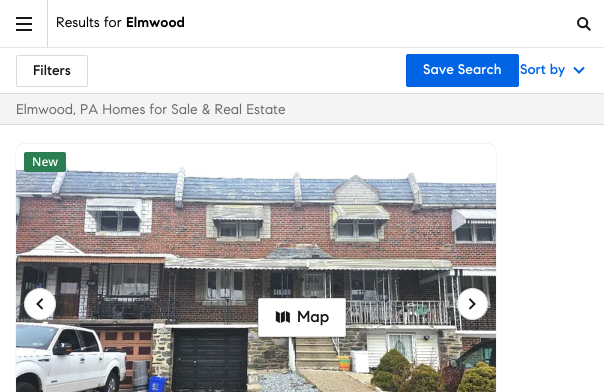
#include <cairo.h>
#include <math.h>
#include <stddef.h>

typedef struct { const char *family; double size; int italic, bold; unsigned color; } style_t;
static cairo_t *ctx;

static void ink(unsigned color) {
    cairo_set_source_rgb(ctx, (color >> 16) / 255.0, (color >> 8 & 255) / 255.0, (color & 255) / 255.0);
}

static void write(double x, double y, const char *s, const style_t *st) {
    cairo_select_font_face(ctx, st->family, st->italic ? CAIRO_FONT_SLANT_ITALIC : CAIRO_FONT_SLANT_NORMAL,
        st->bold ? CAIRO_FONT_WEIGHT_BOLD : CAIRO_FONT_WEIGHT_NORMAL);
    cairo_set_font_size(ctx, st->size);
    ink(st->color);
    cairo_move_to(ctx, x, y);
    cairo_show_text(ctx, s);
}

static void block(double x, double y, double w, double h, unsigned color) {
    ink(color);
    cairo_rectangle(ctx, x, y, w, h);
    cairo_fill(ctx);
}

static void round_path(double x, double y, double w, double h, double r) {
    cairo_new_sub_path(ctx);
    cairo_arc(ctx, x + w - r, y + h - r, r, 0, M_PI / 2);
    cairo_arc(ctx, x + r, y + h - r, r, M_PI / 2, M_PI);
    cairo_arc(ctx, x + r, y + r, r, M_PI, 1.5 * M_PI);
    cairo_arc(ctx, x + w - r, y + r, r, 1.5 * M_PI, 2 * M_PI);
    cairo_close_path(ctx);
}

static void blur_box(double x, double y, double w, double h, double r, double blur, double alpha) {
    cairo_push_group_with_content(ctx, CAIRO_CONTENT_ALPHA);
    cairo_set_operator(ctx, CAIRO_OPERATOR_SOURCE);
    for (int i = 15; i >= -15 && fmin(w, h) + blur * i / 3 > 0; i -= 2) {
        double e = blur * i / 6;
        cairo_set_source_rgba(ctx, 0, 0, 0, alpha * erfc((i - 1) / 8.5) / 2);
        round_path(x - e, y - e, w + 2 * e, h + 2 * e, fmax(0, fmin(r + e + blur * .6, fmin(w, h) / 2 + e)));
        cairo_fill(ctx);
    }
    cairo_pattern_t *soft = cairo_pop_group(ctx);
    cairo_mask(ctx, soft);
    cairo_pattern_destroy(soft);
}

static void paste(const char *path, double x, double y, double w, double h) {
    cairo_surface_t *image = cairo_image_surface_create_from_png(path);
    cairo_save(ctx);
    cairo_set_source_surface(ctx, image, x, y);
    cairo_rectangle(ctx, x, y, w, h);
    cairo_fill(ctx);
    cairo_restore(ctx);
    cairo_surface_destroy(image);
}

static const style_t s1 = {"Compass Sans", 14, 0, 0, 0x000000};
static const style_t s2 = {"Compass Sans", 14, 0, 1, 0x000000};
static const style_t s3 = {"Compass Sans Medium", 14, 0, 0, 0x171717};
static const style_t s4 = {"Compass Sans Medium", 14, 0, 0, 0xffffff};
static const style_t s5 = {"Compass Sans Medium", 14, 0, 0, 0x0064e5};
static const style_t s6 = {"Compass Sans", 14, 0, 0, 0x6c6c6c};
static const style_t s7 = {"Open Sans SemiBold", 12, 0, 0, 0xffffff};
static const style_t s8 = {"Compass Sans Medium", 16, 0, 0, 0x171717};

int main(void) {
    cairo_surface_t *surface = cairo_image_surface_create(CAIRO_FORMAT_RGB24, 604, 392);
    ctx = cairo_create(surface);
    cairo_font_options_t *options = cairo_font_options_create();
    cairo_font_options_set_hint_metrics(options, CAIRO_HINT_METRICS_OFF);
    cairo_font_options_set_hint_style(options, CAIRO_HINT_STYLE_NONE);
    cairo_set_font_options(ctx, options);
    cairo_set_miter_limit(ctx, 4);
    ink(0xffffff);
    cairo_paint(ctx);
    block(0, 47, 604, 1, 0xe6e6e6);
    block(47, 0, 1, 47, 0xd9d9d9);
    paste("pic1.png", 16, 17, 16, 14);
    write(56, 27, "Results for", &s1);
    write(126, 27, "Elmwood", &s2);
    paste("pic2.png", 577, 17, 14, 14);
    round_path(16.5, 55.5, 71, 31, 1.5);
    ink(0xdadada);
    cairo_set_line_width(ctx, 1);
    cairo_stroke(ctx);
    write(33, 75, "Filters", &s3);
    ink(0x0064e5);
    round_path(406.5, 54.5, 112, 32, 1.5);
    cairo_fill_preserve(ctx);
    cairo_stroke(ctx);
    write(423, 74, "Save Search", &s4);
    write(520, 74, "Sort by", &s5);
    paste("pic3.png", 573, 66, 12, 8);
    block(0, 94, 604, 30, 0xf4f4f4);
    block(0, 93, 604, 1, 0xdcdcdc);
    block(0, 124, 604, 1, 0xdcdcdc);
    write(16, 114, "Elmwood, PA Homes for Sale & Real Estate", &s6);
    ink(0x000000);
    blur_box(16, 143, 480, 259, 8, 0.5, 0.06);
    blur_box(17, 148, 478, 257, 7, 2, 0.1);
    paste("pic4.png", 16, 144, 480, 248);
    ink(0xffffff);
    cairo_arc(ctx, 40, 304, 15.5, 0, 2 * M_PI);
    cairo_fill_preserve(ctx);
    ink(0xdadada);
    cairo_stroke(ctx);
    paste("pic5.png", 36, 298, 8, 12);
    ink(0xffffff);
    round_path(457.5, 288.5, 30, 31, 15);
    cairo_fill_preserve(ctx);
    ink(0xdadada);
    cairo_stroke(ctx);
    paste("pic6.png", 468, 298, 8, 12);
    ink(0x2a7e51);
    round_path(24, 152, 42, 20, 2);
    cairo_fill(ctx);
    write(32, 166, "New", &s7);
    ink(0x000000);
    blur_box(258, 299, 88, 39, 2, 1, 0.4);
    ink(0xffffff);
    round_path(258.5, 298.5, 87, 38, 1.5);
    cairo_fill_preserve(ctx);
    ink(0xdadada);
    cairo_stroke(ctx);
    paste("pic7.png", 275, 311, 15, 12);
    write(297, 322, "Map", &s8);
    cairo_surface_write_to_png(surface, "screenshot.png");
    cairo_font_options_destroy(options);
    cairo_destroy(ctx);
    cairo_surface_destroy(surface);
    return 0;
}
